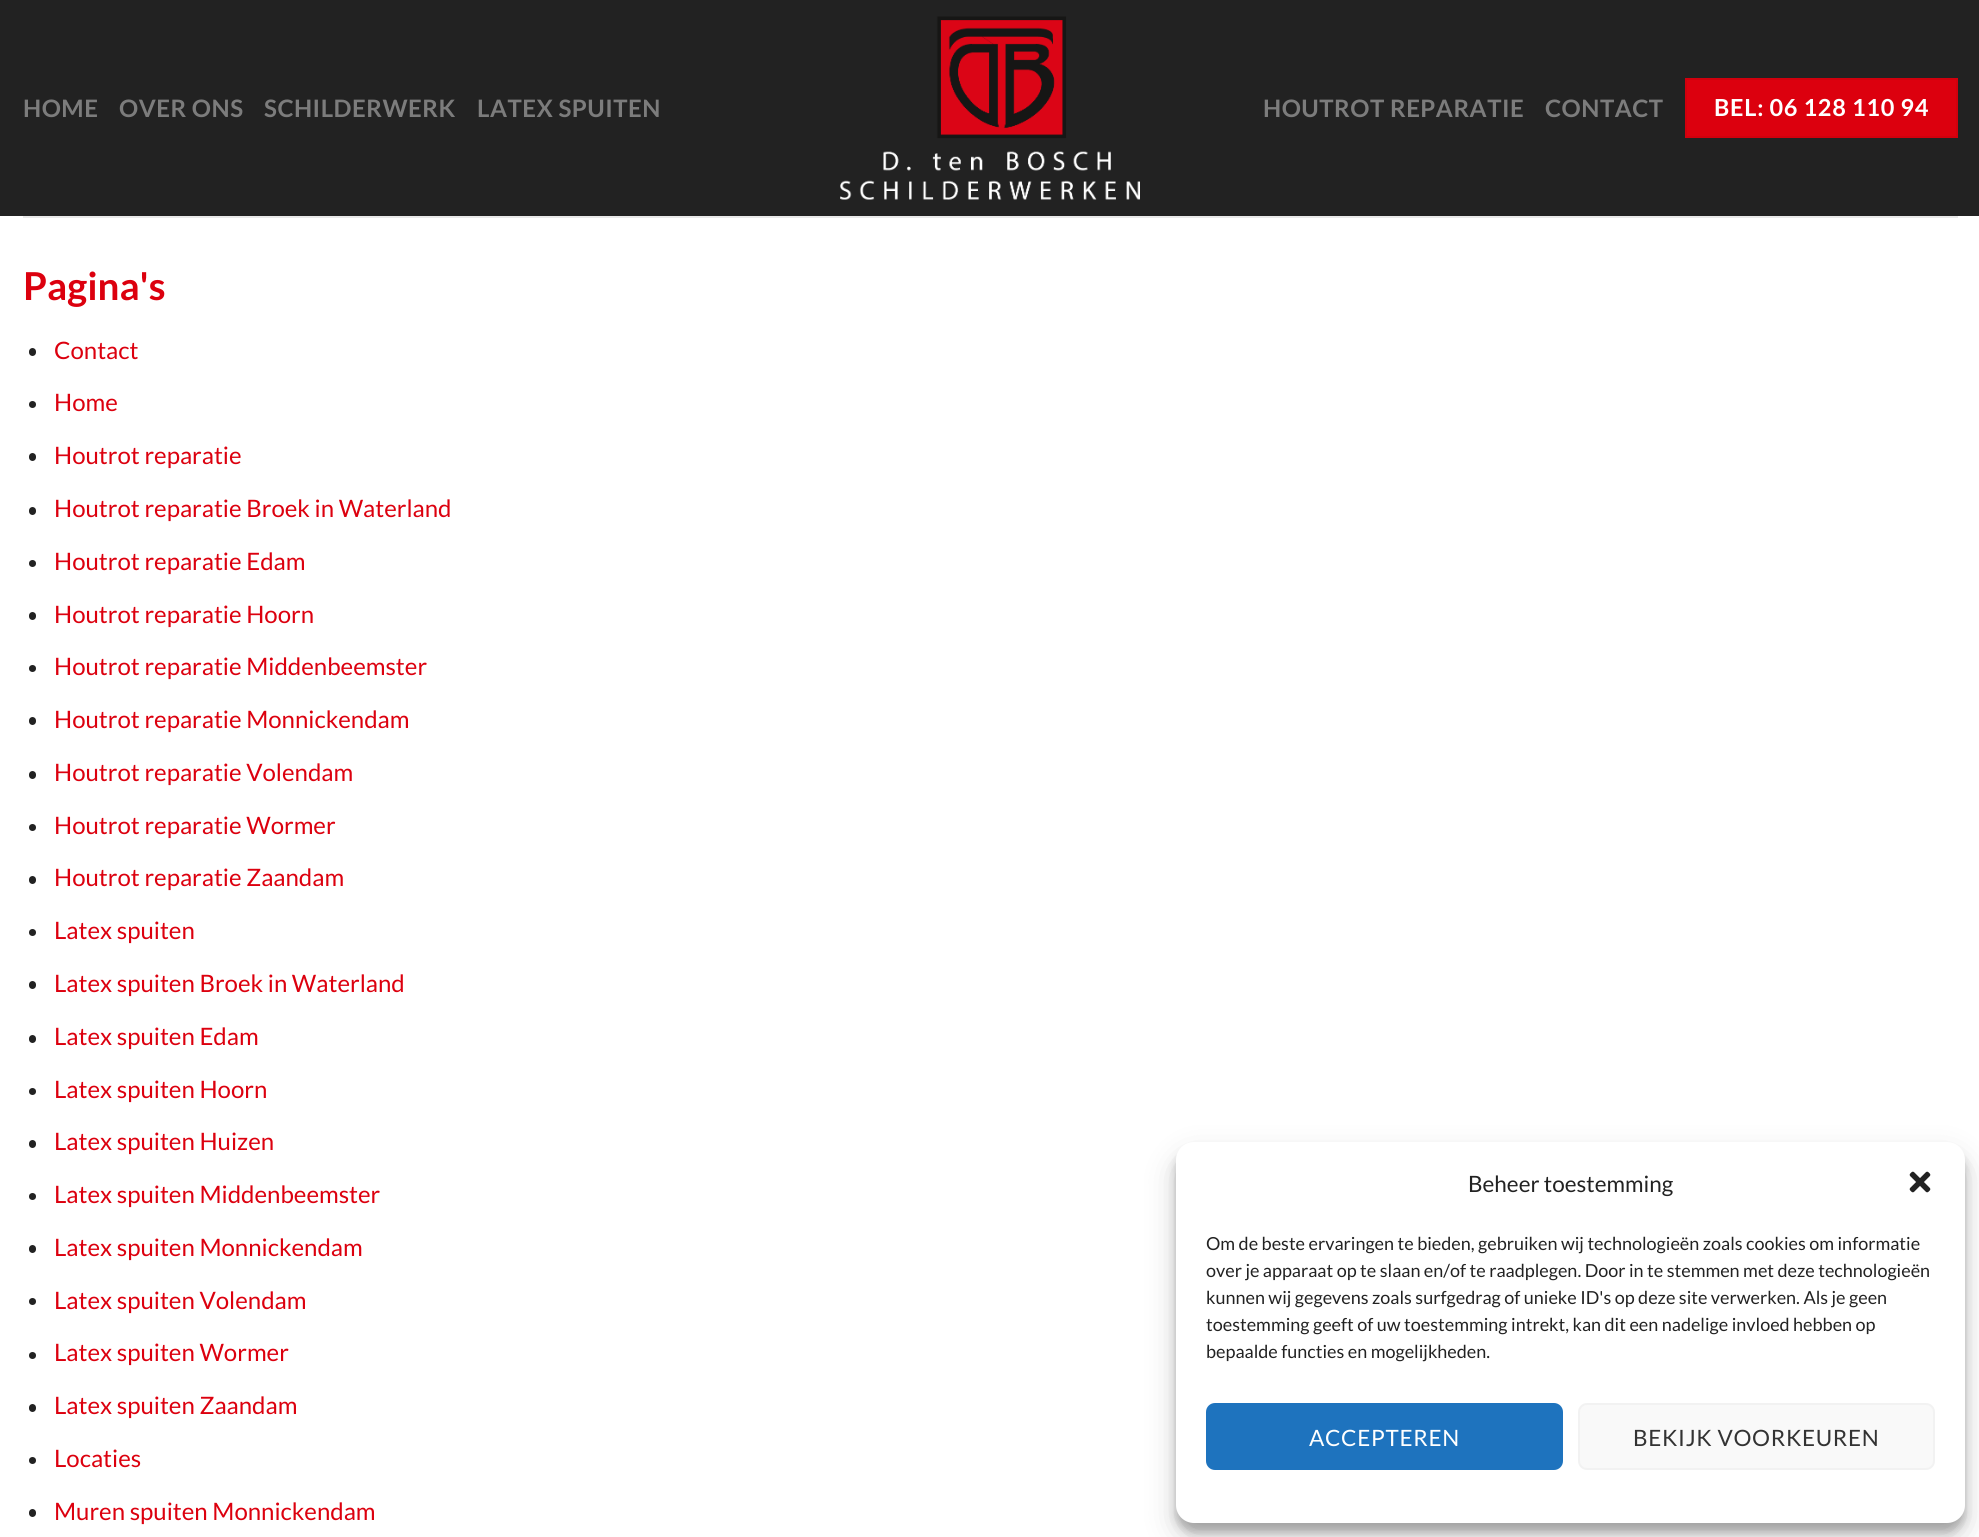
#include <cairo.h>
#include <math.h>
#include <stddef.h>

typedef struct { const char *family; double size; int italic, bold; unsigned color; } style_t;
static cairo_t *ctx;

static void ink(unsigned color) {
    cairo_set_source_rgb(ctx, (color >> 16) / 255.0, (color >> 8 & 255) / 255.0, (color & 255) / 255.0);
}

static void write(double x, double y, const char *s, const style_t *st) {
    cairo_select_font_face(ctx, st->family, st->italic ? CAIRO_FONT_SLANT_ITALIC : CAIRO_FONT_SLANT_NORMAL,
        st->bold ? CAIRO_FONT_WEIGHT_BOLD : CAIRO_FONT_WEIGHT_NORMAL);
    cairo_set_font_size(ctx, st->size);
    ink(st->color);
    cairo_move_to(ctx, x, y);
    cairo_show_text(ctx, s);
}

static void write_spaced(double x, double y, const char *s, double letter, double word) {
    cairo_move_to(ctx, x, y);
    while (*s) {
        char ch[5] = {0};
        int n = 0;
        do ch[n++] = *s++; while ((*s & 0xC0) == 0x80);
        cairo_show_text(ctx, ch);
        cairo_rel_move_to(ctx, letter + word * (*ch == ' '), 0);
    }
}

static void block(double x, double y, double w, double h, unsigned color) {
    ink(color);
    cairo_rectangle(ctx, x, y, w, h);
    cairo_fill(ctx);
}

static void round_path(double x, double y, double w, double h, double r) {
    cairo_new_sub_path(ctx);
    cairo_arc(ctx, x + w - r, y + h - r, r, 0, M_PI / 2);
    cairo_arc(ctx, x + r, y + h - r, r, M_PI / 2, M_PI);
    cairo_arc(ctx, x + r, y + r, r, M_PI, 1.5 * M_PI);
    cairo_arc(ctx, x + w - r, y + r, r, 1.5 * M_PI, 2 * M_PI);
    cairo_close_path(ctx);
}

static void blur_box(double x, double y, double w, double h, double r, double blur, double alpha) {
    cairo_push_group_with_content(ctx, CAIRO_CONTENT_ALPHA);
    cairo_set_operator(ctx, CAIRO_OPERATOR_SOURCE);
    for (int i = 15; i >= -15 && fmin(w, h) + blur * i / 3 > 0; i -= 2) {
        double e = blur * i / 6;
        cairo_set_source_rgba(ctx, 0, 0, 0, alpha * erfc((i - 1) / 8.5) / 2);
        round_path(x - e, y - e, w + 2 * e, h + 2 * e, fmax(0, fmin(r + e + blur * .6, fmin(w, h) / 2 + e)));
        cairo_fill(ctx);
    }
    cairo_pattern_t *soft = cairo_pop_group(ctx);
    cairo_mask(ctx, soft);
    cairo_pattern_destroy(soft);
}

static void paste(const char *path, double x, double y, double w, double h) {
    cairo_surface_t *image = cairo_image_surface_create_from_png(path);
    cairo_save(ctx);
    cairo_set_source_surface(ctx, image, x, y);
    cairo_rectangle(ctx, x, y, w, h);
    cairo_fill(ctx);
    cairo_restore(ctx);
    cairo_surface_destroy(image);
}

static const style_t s1 = {"Lato", 38.5, 0, 1, 0xdc000e};
static const style_t s2 = {"Lato", 24, 0, 0, 0xdc000e};
static const style_t s3 = {"Lato", 22.5, 0, 0, 0x222222};
static const style_t s4 = {"Lato", 18, 0, 0, 0x222222};

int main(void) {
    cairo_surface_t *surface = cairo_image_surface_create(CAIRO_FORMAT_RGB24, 1979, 1537);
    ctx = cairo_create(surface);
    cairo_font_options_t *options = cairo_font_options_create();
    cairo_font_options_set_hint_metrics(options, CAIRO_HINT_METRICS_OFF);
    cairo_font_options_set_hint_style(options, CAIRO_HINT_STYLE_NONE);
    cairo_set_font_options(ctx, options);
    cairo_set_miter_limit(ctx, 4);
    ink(0xffffff);
    cairo_paint(ctx);
    block(0, 0, 1979, 216, 0x222222);
    cairo_select_font_face(ctx, "Lato", CAIRO_FONT_SLANT_NORMAL, CAIRO_FONT_WEIGHT_BOLD);
    cairo_set_font_size(ctx, 24);
    ink(0x7c7c7c);
    write_spaced(23, 117, "HOME", 0.5, 0);
    write_spaced(119, 117, "OVER ONS", 0.5, 0);
    write_spaced(264, 117, "SCHILDERWERK", 0.5, 0);
    write_spaced(477, 117, "LATEX SPUITEN", 0.5, 0);
    paste("pic1.png", 840, 16, 300, 184);
    write_spaced(1263, 117, "HOUTROT REPARATIE", 0.5, 0);
    write_spaced(1545, 117, "CONTACT", 0.5, 0);
    ink(0xdc000e);
    cairo_rectangle(ctx, 1686, 79, 271, 58);
    cairo_fill_preserve(ctx);
    ink(0xd1000d);
    cairo_stroke(ctx);
    cairo_set_font_size(ctx, 23.5);
    ink(0xffffff);
    write_spaced(1714, 116, "BEL: 06 128 110 94", 0.75, 0);
    block(23, 216, 1935, 2, 0xe9e9e9);
    write(23, 300, "Pagina's", &s1);
    ink(0x222222);
    round_path(29, 348, 7, 8, 3.5);
    cairo_fill(ctx);
    write(54, 359, "Contact", &s2);
    ink(0x222222);
    cairo_new_path(ctx);
    cairo_arc(ctx, 32.5, 404.5, 3.5, 0, 2 * M_PI);
    cairo_fill(ctx);
    write(54, 411, "Home", &s2);
    ink(0x222222);
    round_path(29, 453, 7, 8, 3.5);
    cairo_fill(ctx);
    write(54, 464, "Houtrot reparatie", &s2);
    ink(0x222222);
    round_path(29, 507, 7, 8, 3.5);
    cairo_fill(ctx);
    write(54, 517, "Houtrot reparatie Broek in Waterland", &s2);
    ink(0x222222);
    cairo_new_path(ctx);
    cairo_arc(ctx, 32.5, 563.5, 3.5, 0, 2 * M_PI);
    cairo_fill(ctx);
    write(54, 570, "Houtrot reparatie Edam", &s2);
    ink(0x222222);
    round_path(29, 612, 7, 8, 3.5);
    cairo_fill(ctx);
    write(54, 623, "Houtrot reparatie Hoorn", &s2);
    ink(0x222222);
    cairo_new_path(ctx);
    cairo_arc(ctx, 32.5, 668.5, 3.5, 0, 2 * M_PI);
    cairo_fill(ctx);
    write(54, 675, "Houtrot reparatie Middenbeemster", &s2);
    ink(0x222222);
    round_path(29, 717, 7, 8, 3.5);
    cairo_fill(ctx);
    write(54, 728, "Houtrot reparatie Monnickendam", &s2);
    ink(0x222222);
    round_path(29, 771, 7, 8, 3.5);
    cairo_fill(ctx);
    write(54, 781, "Houtrot reparatie Volendam", &s2);
    ink(0x222222);
    cairo_new_path(ctx);
    cairo_arc(ctx, 32.5, 827.5, 3.5, 0, 2 * M_PI);
    cairo_fill(ctx);
    write(54, 834, "Houtrot reparatie Wormer", &s2);
    ink(0x222222);
    round_path(29, 876, 7, 8, 3.5);
    cairo_fill(ctx);
    write(54, 886, "Houtrot reparatie Zaandam", &s2);
    ink(0x222222);
    cairo_new_path(ctx);
    cairo_arc(ctx, 32.5, 932.5, 3.5, 0, 2 * M_PI);
    cairo_fill(ctx);
    write(54, 939, "Latex spuiten", &s2);
    ink(0x222222);
    round_path(29, 981, 7, 8, 3.5);
    cairo_fill(ctx);
    write(54, 992, "Latex spuiten Broek in Waterland", &s2);
    ink(0x222222);
    round_path(29, 1035, 7, 8, 3.5);
    cairo_fill(ctx);
    write(54, 1045, "Latex spuiten Edam", &s2);
    ink(0x222222);
    cairo_new_path(ctx);
    cairo_arc(ctx, 32.5, 1091.5, 3.5, 0, 2 * M_PI);
    cairo_fill(ctx);
    write(54, 1098, "Latex spuiten Hoorn", &s2);
    ink(0x222222);
    round_path(29, 1140, 7, 8, 3.5);
    cairo_fill(ctx);
    write(54, 1150, "Latex spuiten Huizen", &s2);
    ink(0x222222);
    cairo_new_path(ctx);
    cairo_arc(ctx, 32.5, 1196.5, 3.5, 0, 2 * M_PI);
    cairo_fill(ctx);
    write(54, 1203, "Latex spuiten Middenbeemster", &s2);
    ink(0x222222);
    round_path(29, 1245, 7, 8, 3.5);
    cairo_fill(ctx);
    write(54, 1256, "Latex spuiten Monnickendam", &s2);
    ink(0x222222);
    cairo_new_path(ctx);
    cairo_arc(ctx, 32.5, 1301.5, 3.5, 0, 2 * M_PI);
    cairo_fill(ctx);
    write(54, 1309, "Latex spuiten Volendam", &s2);
    ink(0x222222);
    cairo_new_path(ctx);
    cairo_arc(ctx, 32.5, 1355.5, 3.5, 0, 2 * M_PI);
    cairo_fill(ctx);
    write(54, 1361, "Latex spuiten Wormer", &s2);
    ink(0x222222);
    round_path(29, 1404, 7, 8, 3.5);
    cairo_fill(ctx);
    write(54, 1414, "Latex spuiten Zaandam", &s2);
    ink(0x222222);
    cairo_new_path(ctx);
    cairo_arc(ctx, 32.5, 1460.5, 3.5, 0, 2 * M_PI);
    cairo_fill(ctx);
    write(54, 1467, "Locaties", &s2);
    ink(0x222222);
    round_path(29, 1509, 7, 8, 3.5);
    cairo_fill(ctx);
    write(54, 1520, "Muren spuiten Monnickendam", &s2);
    ink(0x000000);
    blur_box(1176, 1151, 789, 381, 18, 4.5, 0.23);
    blur_box(1176, 1157, 789, 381, 18, 15, 0.19);
    ink(0xffffff);
    round_path(1176, 1142, 789, 381, 18);
    cairo_fill(ctx);
    write(1468, 1192, "Beheer toestemming", &s3);
    paste("pic2.png", 1909, 1171, 22, 22);
    write(1206, 1250, "Om de beste ervaringen te bieden, gebruiken wij technologieën zoals cookies om informatie", &s4);
    write(1206, 1277, "over je apparaat op te slaan en/of te raadplegen. Door in te stemmen met deze technologieën", &s4);
    write(1206, 1304, "kunnen wij gegevens zoals surfgedrag of unieke ID's op deze site verwerken. Als je geen", &s4);
    write(1206, 1331, "toestemming geeft of uw toestemming intrekt, kan dit een nadelige invloed hebben op", &s4);
    write(1206, 1358, "bepaalde functies en mogelijkheden.", &s4);
    ink(0x1e73be);
    round_path(1207, 1404, 355, 65, 8);
    cairo_fill_preserve(ctx);
    cairo_stroke(ctx);
    cairo_set_font_size(ctx, 22.5);
    ink(0xffffff);
    write_spaced(1309, 1446, "ACCEPTEREN", 0.7, 0);
    ink(0xf9f9f9);
    round_path(1579, 1404, 355, 65, 8);
    cairo_fill_preserve(ctx);
    ink(0xf2f2f2);
    cairo_stroke(ctx);
    ink(0x333333);
    write_spaced(1633, 1446, "BEKIJK VOORKEUREN", 0.7, 0);
    cairo_surface_write_to_png(surface, "screenshot.png");
    cairo_font_options_destroy(options);
    cairo_destroy(ctx);
    cairo_surface_destroy(surface);
    return 0;
}
